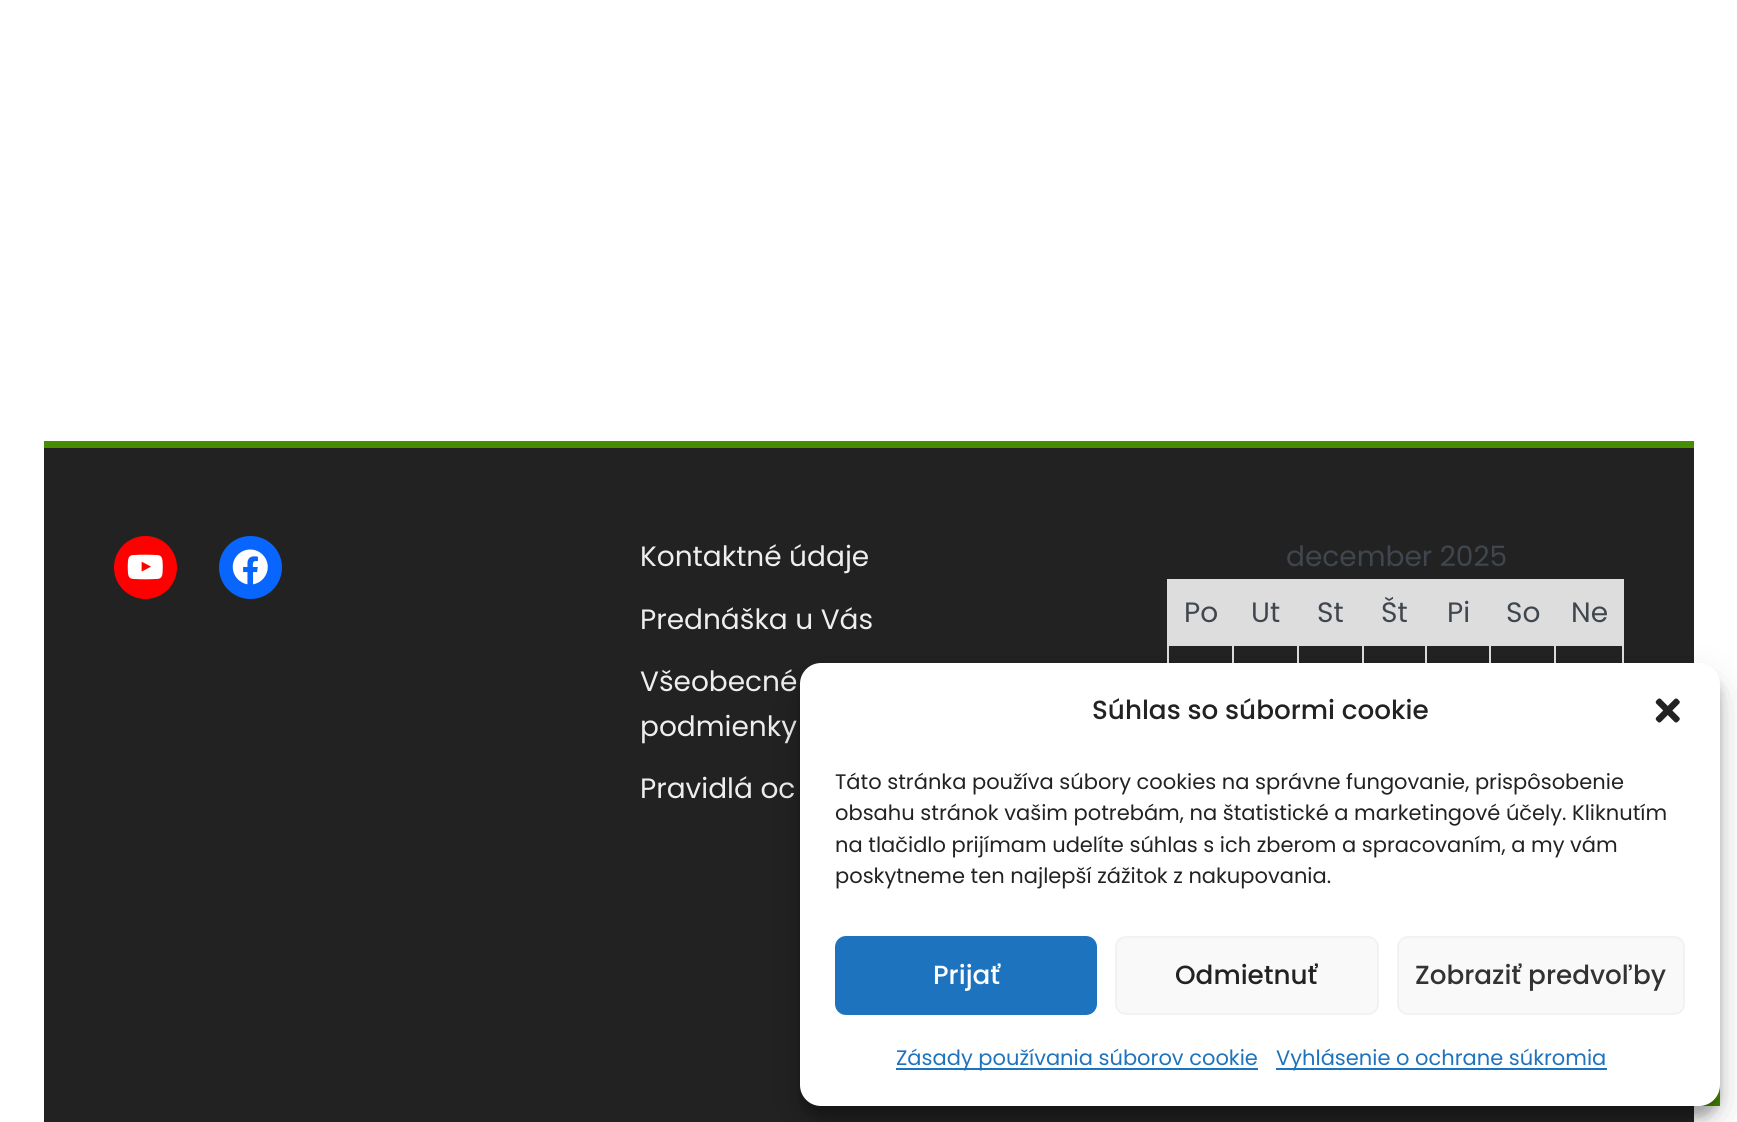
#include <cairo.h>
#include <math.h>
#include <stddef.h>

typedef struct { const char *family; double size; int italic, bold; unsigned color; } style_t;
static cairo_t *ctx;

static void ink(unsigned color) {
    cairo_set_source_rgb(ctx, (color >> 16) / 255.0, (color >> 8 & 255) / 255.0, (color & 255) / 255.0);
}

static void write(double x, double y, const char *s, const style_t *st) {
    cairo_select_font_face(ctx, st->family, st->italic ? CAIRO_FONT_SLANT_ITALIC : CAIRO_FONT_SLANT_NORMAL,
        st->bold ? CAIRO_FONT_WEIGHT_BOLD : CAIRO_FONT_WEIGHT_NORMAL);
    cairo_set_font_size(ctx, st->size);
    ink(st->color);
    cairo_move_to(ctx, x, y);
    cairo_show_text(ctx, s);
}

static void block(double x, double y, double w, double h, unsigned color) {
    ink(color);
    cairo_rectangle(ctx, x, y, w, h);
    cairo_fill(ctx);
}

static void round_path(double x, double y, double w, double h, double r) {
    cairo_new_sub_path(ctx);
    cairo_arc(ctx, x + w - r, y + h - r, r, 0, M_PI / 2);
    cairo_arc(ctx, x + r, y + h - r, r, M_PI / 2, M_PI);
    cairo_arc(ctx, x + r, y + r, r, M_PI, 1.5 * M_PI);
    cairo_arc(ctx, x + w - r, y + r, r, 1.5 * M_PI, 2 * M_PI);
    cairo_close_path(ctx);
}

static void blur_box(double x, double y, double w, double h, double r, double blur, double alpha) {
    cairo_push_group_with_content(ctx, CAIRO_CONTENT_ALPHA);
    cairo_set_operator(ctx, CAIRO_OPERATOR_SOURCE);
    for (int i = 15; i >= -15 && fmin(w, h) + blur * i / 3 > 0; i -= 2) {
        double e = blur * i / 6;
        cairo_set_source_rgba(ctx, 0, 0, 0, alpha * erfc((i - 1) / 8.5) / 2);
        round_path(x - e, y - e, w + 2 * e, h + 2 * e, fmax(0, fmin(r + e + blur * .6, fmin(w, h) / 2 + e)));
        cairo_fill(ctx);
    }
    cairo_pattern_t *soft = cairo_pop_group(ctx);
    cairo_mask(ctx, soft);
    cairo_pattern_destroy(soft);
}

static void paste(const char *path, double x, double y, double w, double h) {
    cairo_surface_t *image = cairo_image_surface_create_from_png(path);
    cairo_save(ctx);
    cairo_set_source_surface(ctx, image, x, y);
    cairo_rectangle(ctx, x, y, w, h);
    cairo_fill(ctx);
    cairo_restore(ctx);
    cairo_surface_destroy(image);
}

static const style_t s1 = {"Poppins", 28, 0, 0, 0xeeeeee};
static const style_t s2 = {"Poppins", 28, 0, 0, 0x40464d};
static const style_t s3 = {"Poppins Medium", 26.25, 0, 0, 0x222222};
static const style_t s4 = {"Poppins", 21, 0, 0, 0x222222};
static const style_t s5 = {"Poppins Medium", 26.25, 0, 0, 0xffffff};
static const style_t s6 = {"Poppins Medium", 26.25, 0, 0, 0x333333};
static const style_t s7 = {"Poppins", 21, 0, 0, 0x1e73be};

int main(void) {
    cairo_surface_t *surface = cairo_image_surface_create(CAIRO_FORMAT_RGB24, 1737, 1122);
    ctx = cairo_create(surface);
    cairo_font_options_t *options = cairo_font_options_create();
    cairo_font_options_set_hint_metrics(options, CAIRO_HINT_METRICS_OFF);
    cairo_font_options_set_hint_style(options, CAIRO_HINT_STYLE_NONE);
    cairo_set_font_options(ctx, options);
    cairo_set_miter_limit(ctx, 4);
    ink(0xffffff);
    cairo_paint(ctx);
    block(44, 448, 1650, 674, 0x222222);
    block(44, 441, 1650, 7, 0x488e01);
    ink(0xff0000);
    cairo_arc(ctx, 145.5, 567.5, 31.5, 0, 2 * M_PI);
    cairo_fill(ctx);
    paste("pic1.png", 127, 554, 36, 26);
    ink(0x0866ff);
    cairo_arc(ctx, 250.5, 567.5, 31.5, 0, 2 * M_PI);
    cairo_fill(ctx);
    paste("pic2.png", 232, 549, 36, 36);
    write(640, 566, "Kontaktné údaje", &s1);
    write(640, 629, "Prednáška u Vás", &s1);
    write(640, 691, "Všeobecné", &s1);
    write(640, 736, "podmienky", &s1);
    write(640, 798, "Pravidlá oc", &s1);
    write(1286, 566, "december 2025", &s2);
    block(1169, 581, 455, 63, 0xdddddd);
    block(1167, 579, 457, 2, 0xdddddd);
    block(1554, 644, 70, 2, 0xdddddd);
    block(1554, 644, 2, 19, 0xdddddd);
    block(1489, 644, 67, 2, 0xdddddd);
    block(1489, 644, 2, 19, 0xdddddd);
    block(1425, 644, 66, 2, 0xdddddd);
    block(1425, 644, 2, 19, 0xdddddd);
    block(1362, 644, 64, 2, 0xdddddd);
    block(1362, 644, 2, 19, 0xdddddd);
    block(1297, 644, 66, 2, 0xdddddd);
    block(1297, 644, 2, 19, 0xdddddd);
    block(1232, 644, 67, 2, 0xdddddd);
    block(1232, 644, 2, 19, 0xdddddd);
    block(1167, 644, 67, 2, 0xdddddd);
    block(1167, 644, 2, 19, 0xdddddd);
    block(1167, 579, 2, 67, 0xdddddd);
    write(1184, 622, "Po", &s2);
    write(1251, 622, "Ut", &s2);
    write(1317, 622, "St", &s2);
    write(1381, 622, "Št", &s2);
    write(1447, 622, "Pi", &s2);
    write(1506, 622, "So", &s2);
    write(1571, 622, "Ne", &s2);
    block(1622, 644, 2, 19, 0xdddddd);
    block(1699, 1085, 21, 21, 0x488e01);
    ink(0x000000);
    blur_box(800, 674, 920, 443, 21, 5, 0.23);
    blur_box(800, 681, 920, 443, 21, 17.5, 0.19);
    ink(0xffffff);
    round_path(800, 663, 920, 443, 21);
    cairo_fill(ctx);
    write(1092, 719, "Súhlas so súbormi cookie", &s3);
    paste("pic3.png", 1655, 698, 25, 25);
    write(835, 789, "Táto stránka používa súbory cookies na správne fungovanie, prispôsobenie", &s4);
    write(835, 820, "obsahu stránok vašim potrebám, na štatistické a marketingové účely. Kliknutím", &s4);
    write(835, 852, "na tlačidlo prijímam udelíte súhlas s ich zberom a spracovaním, a my vám", &s4);
    write(835, 883, "poskytneme ten najlepší zážitok z nakupovania.", &s4);
    ink(0x1e73be);
    round_path(836, 937, 260, 77, 10);
    cairo_fill_preserve(ctx);
    cairo_stroke(ctx);
    write(933, 984, "Prijať", &s5);
    ink(0xf9f9f9);
    round_path(1116, 937, 262, 77, 10);
    cairo_fill_preserve(ctx);
    ink(0xf2f2f2);
    cairo_stroke(ctx);
    write(1175, 984, "Odmietnuť", &s3);
    ink(0xf9f9f9);
    round_path(1398, 937, 286, 77, 10);
    cairo_fill_preserve(ctx);
    ink(0xf2f2f2);
    cairo_stroke(ctx);
    write(1415, 984, "Zobraziť predvoľby", &s6);
    block(896, 1068, 362, 2, 0x1e73be);
    write(896, 1065, "Zásady používania súborov cookie", &s7);
    block(1276, 1068, 331, 2, 0x1e73be);
    write(1276, 1065, "Vyhlásenie o ochrane súkromia", &s7);
    cairo_surface_write_to_png(surface, "screenshot.png");
    cairo_font_options_destroy(options);
    cairo_destroy(ctx);
    cairo_surface_destroy(surface);
    return 0;
}
